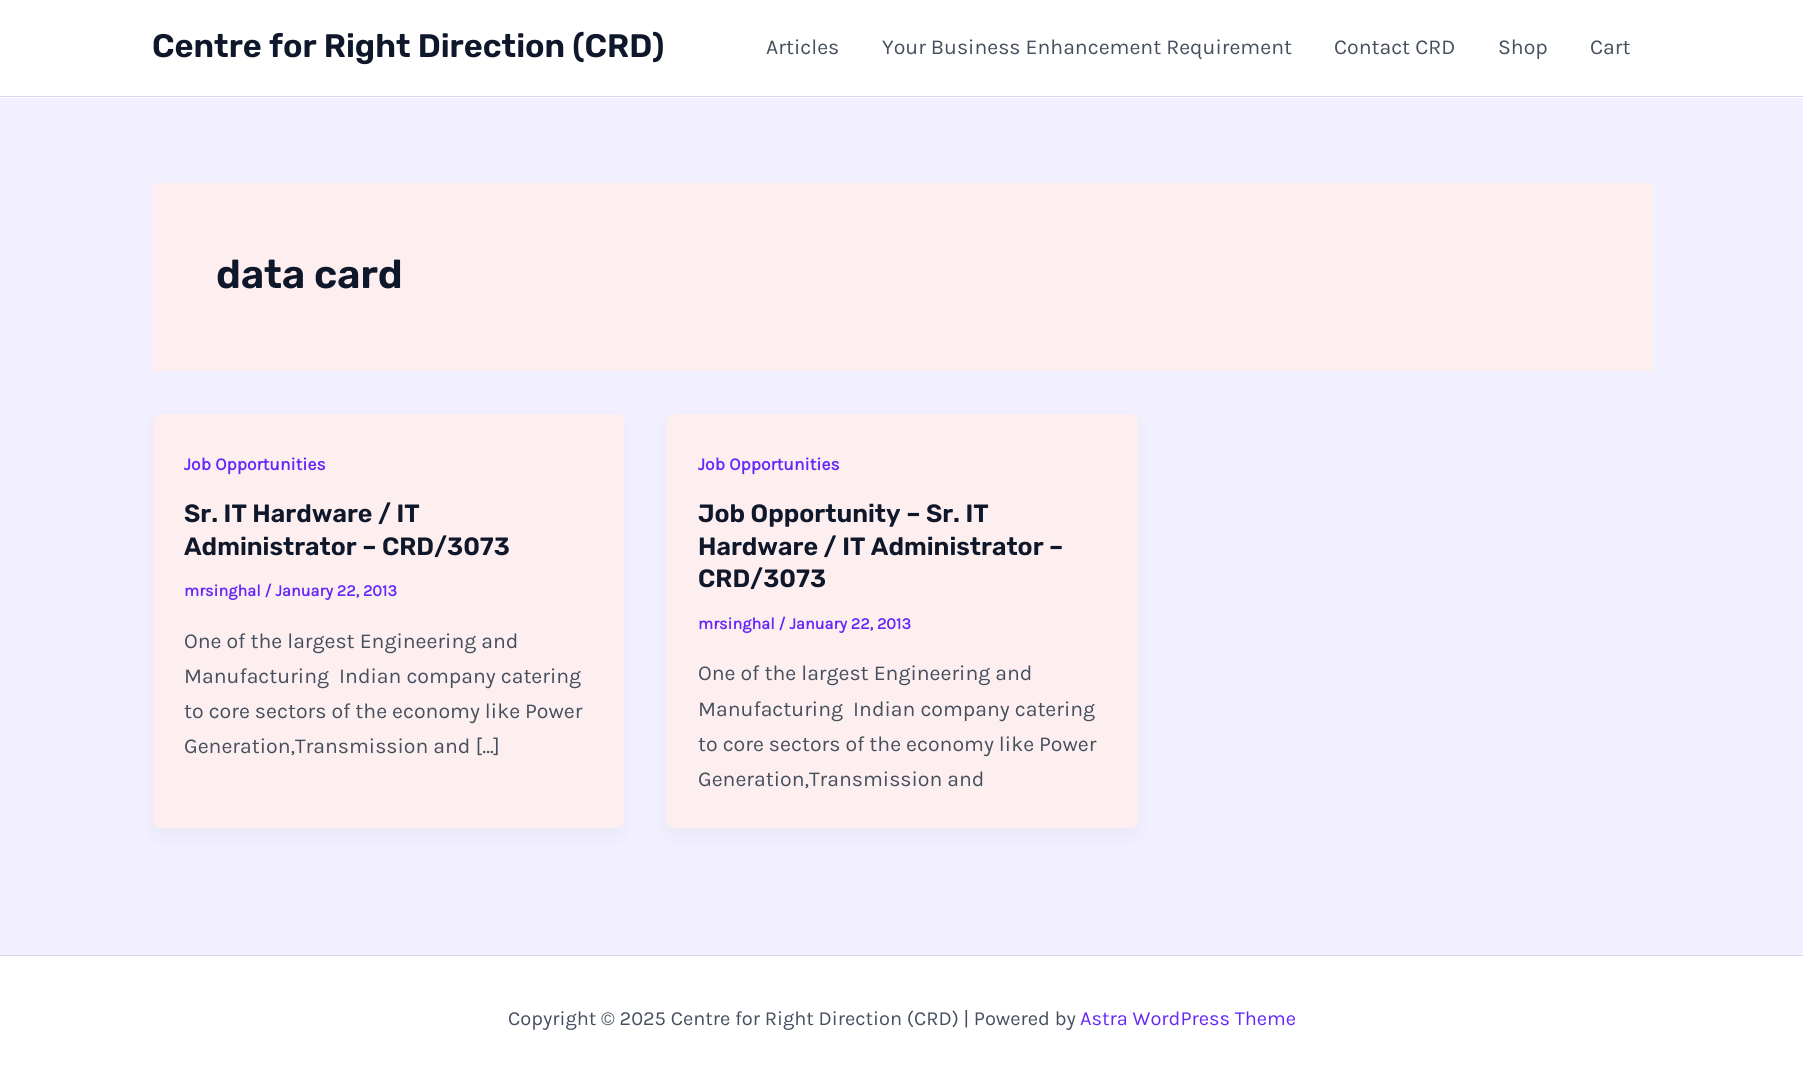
#include <cairo.h>
#include <math.h>
#include <stddef.h>

typedef struct { const char *family; double size; int italic, bold; unsigned color; } style_t;
static cairo_t *ctx;

static void ink(unsigned color) {
    cairo_set_source_rgb(ctx, (color >> 16) / 255.0, (color >> 8 & 255) / 255.0, (color & 255) / 255.0);
}

static void write(double x, double y, const char *s, const style_t *st) {
    cairo_select_font_face(ctx, st->family, st->italic ? CAIRO_FONT_SLANT_ITALIC : CAIRO_FONT_SLANT_NORMAL,
        st->bold ? CAIRO_FONT_WEIGHT_BOLD : CAIRO_FONT_WEIGHT_NORMAL);
    cairo_set_font_size(ctx, st->size);
    ink(st->color);
    cairo_move_to(ctx, x, y);
    cairo_show_text(ctx, s);
}

static void block(double x, double y, double w, double h, unsigned color) {
    ink(color);
    cairo_rectangle(ctx, x, y, w, h);
    cairo_fill(ctx);
}

static void round_path(double x, double y, double w, double h, double r) {
    cairo_new_sub_path(ctx);
    cairo_arc(ctx, x + w - r, y + h - r, r, 0, M_PI / 2);
    cairo_arc(ctx, x + r, y + h - r, r, M_PI / 2, M_PI);
    cairo_arc(ctx, x + r, y + r, r, M_PI, 1.5 * M_PI);
    cairo_arc(ctx, x + w - r, y + r, r, 1.5 * M_PI, 2 * M_PI);
    cairo_close_path(ctx);
}

static void blur_box(double x, double y, double w, double h, double r, double blur, double alpha) {
    cairo_push_group_with_content(ctx, CAIRO_CONTENT_ALPHA);
    cairo_set_operator(ctx, CAIRO_OPERATOR_SOURCE);
    for (int i = 15; i >= -15 && fmin(w, h) + blur * i / 3 > 0; i -= 2) {
        double e = blur * i / 6;
        cairo_set_source_rgba(ctx, 0, 0, 0, alpha * erfc((i - 1) / 8.5) / 2);
        round_path(x - e, y - e, w + 2 * e, h + 2 * e, fmax(0, fmin(r + e + blur * .6, fmin(w, h) / 2 + e)));
        cairo_fill(ctx);
    }
    cairo_pattern_t *soft = cairo_pop_group(ctx);
    cairo_mask(ctx, soft);
    cairo_pattern_destroy(soft);
}

static const style_t s1 = {"Rubik SemiBold", 32.5, 0, 0, 0x0f172a};
static const style_t s2 = {"Karla", 21.25, 0, 0, 0x454f5e};
static const style_t s3 = {"Rubik SemiBold", 40, 0, 0, 0x0f172a};
static const style_t s4 = {"Karla", 17.5, 0, 1, 0x6528f7};
static const style_t s5 = {"Rubik SemiBold", 25, 0, 0, 0x0f172a};
static const style_t s6 = {"Karla", 16.25, 0, 1, 0x6528f7};
static const style_t s7 = {"Karla", 20, 0, 0, 0x454f5e};
static const style_t s8 = {"Karla", 20, 0, 0, 0x6528f7};

int main(void) {
    cairo_surface_t *surface = cairo_image_surface_create(CAIRO_FORMAT_RGB24, 1803, 1081);
    ctx = cairo_create(surface);
    cairo_font_options_t *options = cairo_font_options_create();
    cairo_font_options_set_hint_metrics(options, CAIRO_HINT_METRICS_OFF);
    cairo_font_options_set_hint_style(options, CAIRO_HINT_STYLE_NONE);
    cairo_set_font_options(ctx, options);
    cairo_set_miter_limit(ctx, 4);
    ink(0xf2f0fe);
    cairo_paint(ctx);
    block(0, 0, 1803, 98, 0xffffff);
    block(0, 96, 1803, 1, 0xd8d8f5);
    write(152, 57, "Centre for Right Direction (CRD)", &s1);
    write(766, 54, "Articles", &s2);
    write(882, 54, "Your Business Enhancement Requirement", &s2);
    write(1334, 54, "Contact CRD", &s2);
    write(1498, 54, "Shop", &s2);
    write(1590, 54, "Cart", &s2);
    block(153, 183, 1500, 188, 0xfdefef);
    write(216, 288, "data card", &s3);
    ink(0x101828);
    blur_box(155, 424, 466, 409, 5, 9.5, 0.05);
    ink(0xfdefef);
    round_path(153, 414, 471, 414, 8);
    cairo_fill(ctx);
    write(184, 470, "Job Opportunities", &s4);
    write(184, 522, "Sr. IT Hardware / IT", &s5);
    write(184, 555, "Administrator – CRD/3073", &s5);
    write(184, 596, "mrsinghal / January 22, 2013", &s6);
    write(184, 648, "One of the largest Engineering and", &s2);
    write(184, 683, "Manufacturing  Indian company catering", &s2);
    write(184, 718, "to core sectors of the economy like Power", &s2);
    write(184, 753, "Generation,Transmission and […]", &s2);
    ink(0x101828);
    blur_box(669, 424, 466, 409, 5, 9.5, 0.05);
    ink(0xfdefef);
    round_path(666, 414, 472, 414, 8);
    cairo_fill(ctx);
    write(698, 470, "Job Opportunities", &s4);
    write(698, 522, "Job Opportunity – Sr. IT", &s5);
    write(698, 555, "Hardware / IT Administrator –", &s5);
    write(698, 587, "CRD/3073", &s5);
    write(698, 629, "mrsinghal / January 22, 2013", &s6);
    write(698, 680, "One of the largest Engineering and", &s2);
    write(698, 716, "Manufacturing  Indian company catering", &s2);
    write(698, 751, "to core sectors of the economy like Power", &s2);
    write(698, 786, "Generation,Transmission and", &s2);
    block(0, 956, 1803, 125, 0xffffff);
    block(0, 955, 1803, 1, 0xd8d8f5);
    write(508, 1025, "Copyright © 2025 Centre for Right Direction (CRD) | Powered by", &s7);
    write(1080, 1025, "Astra WordPress Theme", &s8);
    cairo_surface_write_to_png(surface, "screenshot.png");
    cairo_font_options_destroy(options);
    cairo_destroy(ctx);
    cairo_surface_destroy(surface);
    return 0;
}
